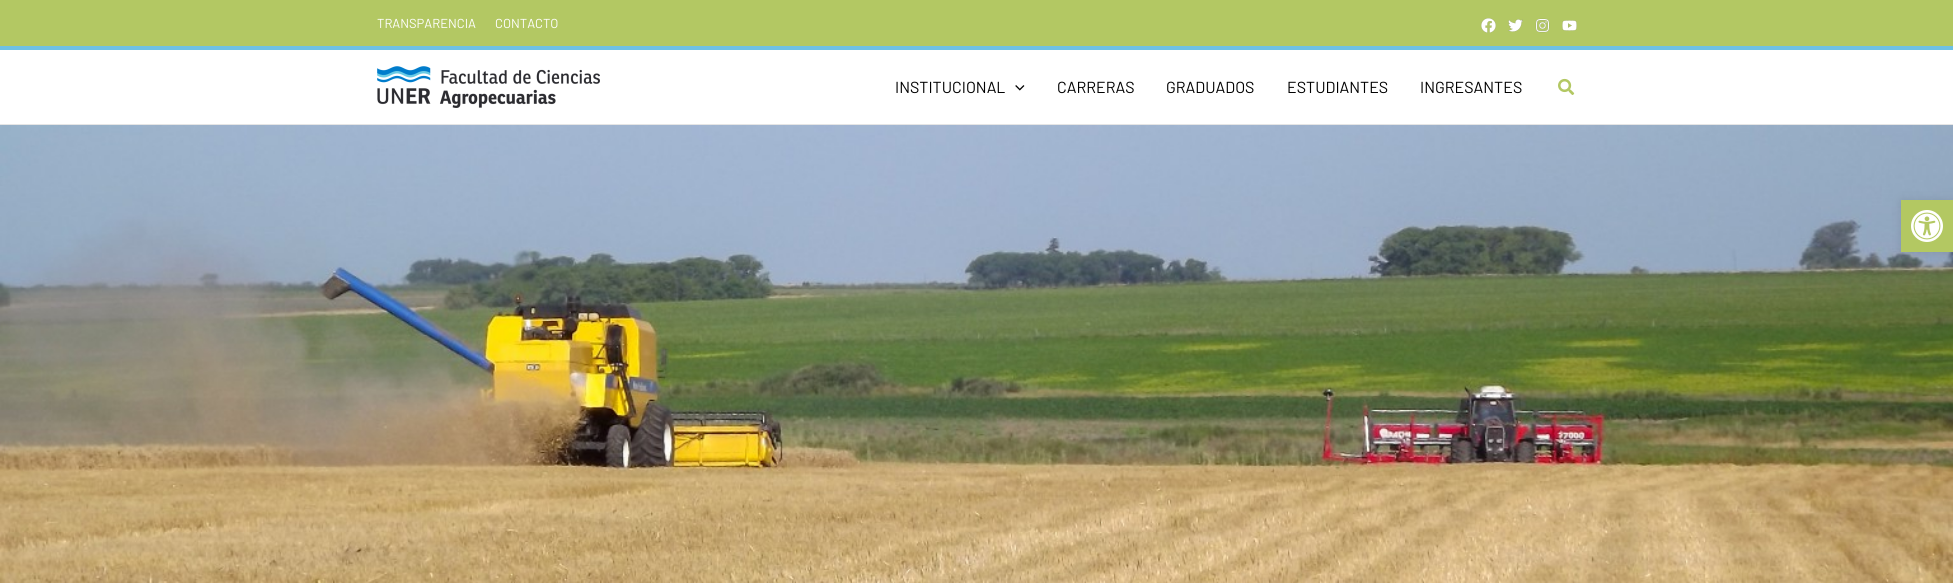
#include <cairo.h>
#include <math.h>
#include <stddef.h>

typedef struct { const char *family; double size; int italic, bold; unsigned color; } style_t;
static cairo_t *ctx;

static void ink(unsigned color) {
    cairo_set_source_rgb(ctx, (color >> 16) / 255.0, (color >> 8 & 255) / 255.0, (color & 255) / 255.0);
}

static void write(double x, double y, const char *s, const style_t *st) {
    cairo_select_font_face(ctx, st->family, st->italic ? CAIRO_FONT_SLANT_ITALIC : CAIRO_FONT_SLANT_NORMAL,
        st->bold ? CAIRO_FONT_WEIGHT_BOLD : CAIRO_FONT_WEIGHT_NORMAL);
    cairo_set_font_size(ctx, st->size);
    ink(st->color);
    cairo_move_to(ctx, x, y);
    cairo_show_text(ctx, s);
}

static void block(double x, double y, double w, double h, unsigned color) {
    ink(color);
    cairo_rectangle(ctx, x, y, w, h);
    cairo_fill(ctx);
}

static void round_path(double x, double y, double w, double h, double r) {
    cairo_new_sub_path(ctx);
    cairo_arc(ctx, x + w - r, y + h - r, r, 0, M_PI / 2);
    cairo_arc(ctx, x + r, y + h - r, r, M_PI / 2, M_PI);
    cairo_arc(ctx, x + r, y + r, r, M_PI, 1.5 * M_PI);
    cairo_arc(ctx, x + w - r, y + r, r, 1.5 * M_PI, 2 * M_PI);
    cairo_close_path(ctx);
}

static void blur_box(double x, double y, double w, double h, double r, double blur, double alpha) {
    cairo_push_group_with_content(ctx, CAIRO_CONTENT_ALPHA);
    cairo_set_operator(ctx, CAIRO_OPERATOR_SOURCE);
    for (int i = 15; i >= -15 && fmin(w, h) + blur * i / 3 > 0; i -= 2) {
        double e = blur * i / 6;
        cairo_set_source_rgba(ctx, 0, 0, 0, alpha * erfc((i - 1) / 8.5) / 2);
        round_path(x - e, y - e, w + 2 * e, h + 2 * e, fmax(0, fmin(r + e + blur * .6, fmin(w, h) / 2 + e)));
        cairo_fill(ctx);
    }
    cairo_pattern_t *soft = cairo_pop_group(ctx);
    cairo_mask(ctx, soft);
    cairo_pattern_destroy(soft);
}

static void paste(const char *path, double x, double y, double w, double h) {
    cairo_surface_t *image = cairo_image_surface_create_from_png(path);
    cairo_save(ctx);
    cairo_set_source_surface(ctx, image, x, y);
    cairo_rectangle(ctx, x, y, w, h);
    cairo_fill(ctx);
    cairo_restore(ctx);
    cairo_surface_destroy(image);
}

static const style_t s1 = {"Barlow", 13, 0, 0, 0xffffff};
static const style_t s2 = {"Barlow", 16, 0, 0, 0x000000};

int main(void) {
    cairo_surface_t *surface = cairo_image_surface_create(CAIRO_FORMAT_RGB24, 1953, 583);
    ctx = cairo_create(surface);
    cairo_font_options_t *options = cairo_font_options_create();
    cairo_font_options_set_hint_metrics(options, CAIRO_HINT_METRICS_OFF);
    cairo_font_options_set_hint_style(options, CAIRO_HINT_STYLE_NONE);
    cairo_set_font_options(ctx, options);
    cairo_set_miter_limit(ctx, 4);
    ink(0xffffff);
    cairo_paint(ctx);
    block(0, 0, 1953, 46, 0xb3c863);
    block(0, 46, 1953, 4, 0x6ec1e4);
    write(377, 28, "TRANSPARENCIA", &s1);
    write(495, 28, "CONTACTO", &s1);
    paste("pic1.png", 1481, 18, 15, 15);
    paste("pic2.png", 1508, 19, 15, 13);
    paste("pic3.png", 1535, 18, 15, 15);
    paste("pic4.png", 1562, 20, 15, 11);
    block(0, 124, 1953, 1, 0xe5e5e5);
    paste("pic5.png", 377, 66, 223, 42);
    write(895, 93, "INSTITUCIONAL", &s2);
    paste("pic6.png", 1015, 85, 10, 6);
    write(1057, 93, "CARRERAS", &s2);
    write(1166, 93, "GRADUADOS", &s2);
    write(1287, 93, "ESTUDIANTES", &s2);
    write(1420, 93, "INGRESANTES", &s2);
    paste("pic7.png", 1558, 78, 17, 17);
    paste("pic8.png", 0, 125, 1953, 458);
    ink(0x000000);
    blur_box(1901, 200, 52, 52, 0, 5, 0.1);
    block(1901, 200, 52, 52, 0xb3c862);
    paste("pic9.png", 1911, 210, 32, 32);
    cairo_surface_write_to_png(surface, "screenshot.png");
    cairo_font_options_destroy(options);
    cairo_destroy(ctx);
    cairo_surface_destroy(surface);
    return 0;
}
